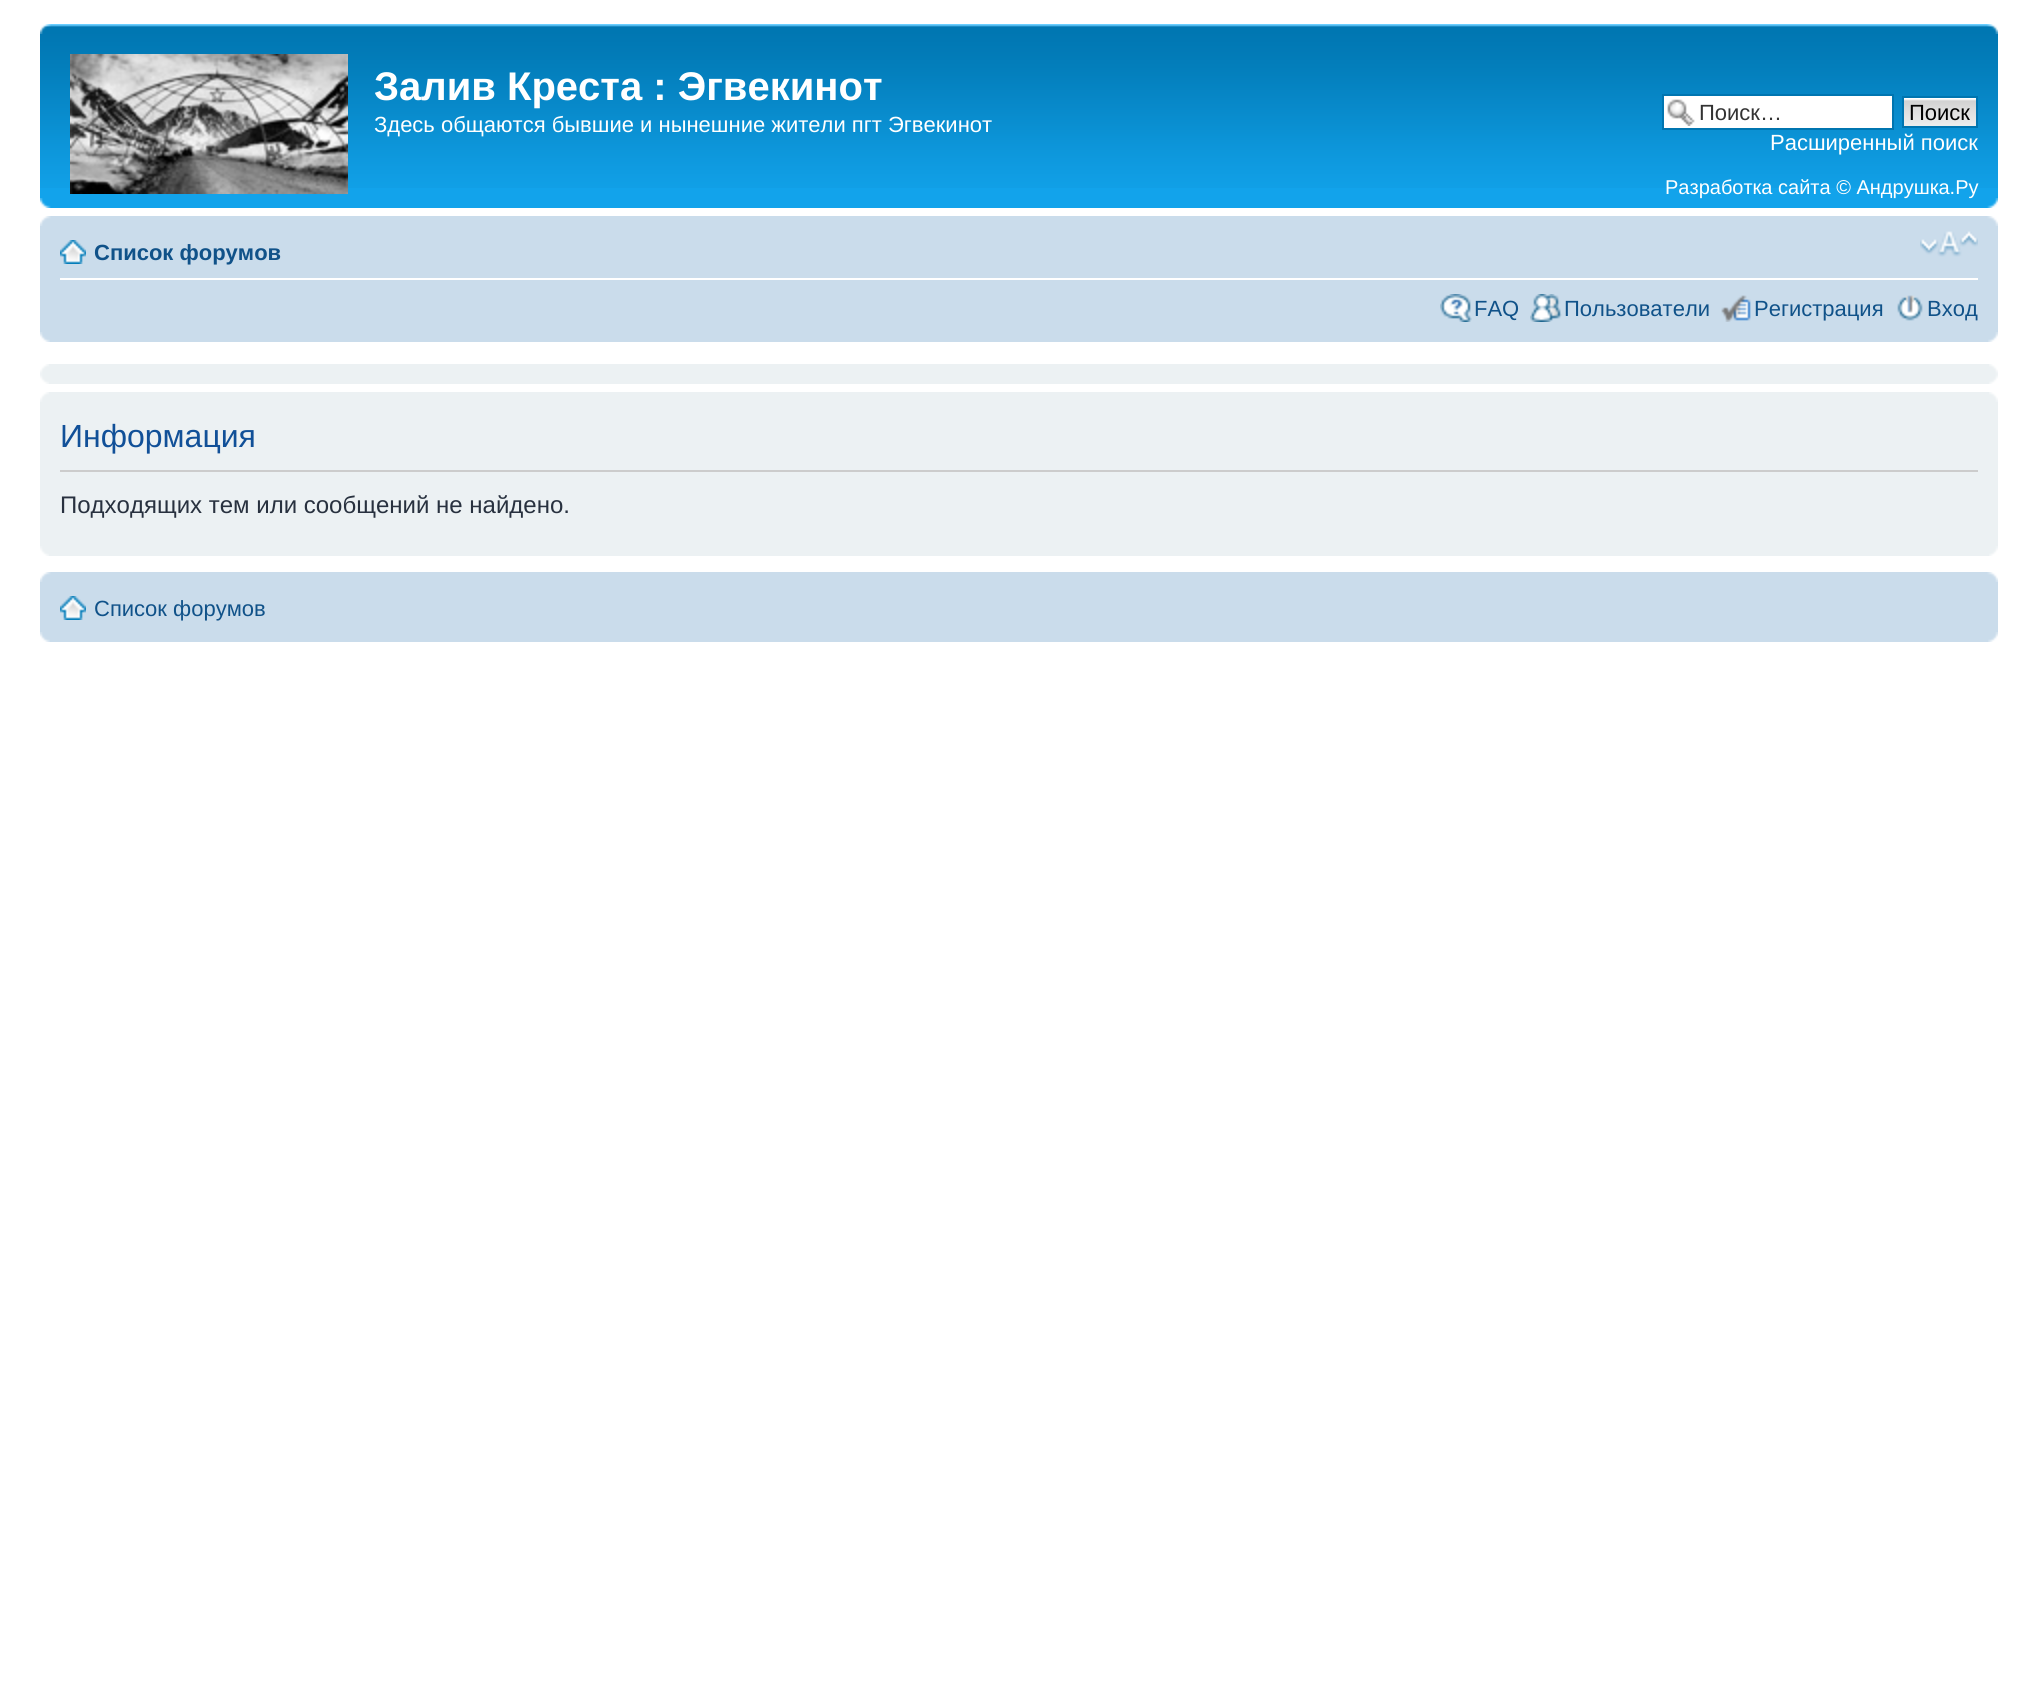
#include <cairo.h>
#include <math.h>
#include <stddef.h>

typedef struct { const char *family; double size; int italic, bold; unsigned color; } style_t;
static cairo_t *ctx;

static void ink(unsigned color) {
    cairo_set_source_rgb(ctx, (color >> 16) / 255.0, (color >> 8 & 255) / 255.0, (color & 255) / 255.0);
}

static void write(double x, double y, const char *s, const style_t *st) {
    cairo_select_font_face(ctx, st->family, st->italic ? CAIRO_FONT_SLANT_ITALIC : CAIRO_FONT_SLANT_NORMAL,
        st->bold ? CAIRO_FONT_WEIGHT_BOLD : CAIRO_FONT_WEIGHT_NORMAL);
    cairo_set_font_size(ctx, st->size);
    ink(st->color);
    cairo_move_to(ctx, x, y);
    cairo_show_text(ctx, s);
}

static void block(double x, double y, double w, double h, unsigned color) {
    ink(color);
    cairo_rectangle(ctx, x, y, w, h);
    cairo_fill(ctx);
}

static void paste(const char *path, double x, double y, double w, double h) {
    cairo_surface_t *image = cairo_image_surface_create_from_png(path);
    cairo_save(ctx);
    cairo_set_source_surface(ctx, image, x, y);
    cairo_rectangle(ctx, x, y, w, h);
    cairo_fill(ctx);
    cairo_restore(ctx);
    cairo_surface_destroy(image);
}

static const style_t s1 = {"Liberation Sans", 40, 0, 1, 0xffffff};
static const style_t s2 = {"Liberation Sans", 22, 0, 0, 0xffffff};
static const style_t s3 = {"Liberation Sans", 22, 0, 0, 0x333333};
static const style_t s4 = {"Liberation Sans", 22, 0, 0, 0x000000};
static const style_t s5 = {"Liberation Sans", 20, 0, 0, 0xffffff};
static const style_t s6 = {"Liberation Sans", 22, 0, 1, 0x105289};
static const style_t s7 = {"Liberation Sans", 22, 0, 0, 0x105289};
static const style_t s8 = {"Liberation Sans", 32, 0, 0, 0x115098};
static const style_t s9 = {"Liberation Sans", 24, 0, 0, 0x28313f};

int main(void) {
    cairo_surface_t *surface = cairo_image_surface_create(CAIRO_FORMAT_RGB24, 2038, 1683);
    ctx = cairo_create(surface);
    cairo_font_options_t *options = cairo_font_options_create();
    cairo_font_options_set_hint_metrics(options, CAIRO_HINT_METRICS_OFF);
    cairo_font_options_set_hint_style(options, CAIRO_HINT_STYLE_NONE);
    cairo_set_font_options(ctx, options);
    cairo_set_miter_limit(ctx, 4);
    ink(0xffffff);
    cairo_paint(ctx);
    block(40, 188, 1958, 20, 0x12a3eb);
    paste("pic1.png", 40, 24, 1958, 164);
    paste("pic2.png", 40, 24, 11, 10);
    paste("pic3.png", 1987, 24, 11, 10);
    paste("pic4.png", 70, 54, 278, 140);
    write(374, 100, "Залив Креста : Эгвекинот", &s1);
    write(374, 132, "Здесь общаются бывшие и нынешние жители пгт Эгвекинот", &s2);
    block(1664, 96, 228, 32, 0xffffff);
    paste("pic5.png", 1667, 99, 28, 27);
    cairo_rectangle(ctx, 1663, 95, 230, 34);
    ink(0x0075b0);
    cairo_stroke(ctx);
    write(1699, 120, "Поиск…", &s3);
    paste("pic6.png", 1904, 98, 72, 28);
    cairo_rectangle(ctx, 1903, 97, 74, 30);
    ink(0x0075b0);
    cairo_stroke(ctx);
    write(1909, 120, "Поиск", &s4);
    write(1770, 150, "Расширенный поиск", &s2);
    write(1665, 194, "Разработка сайта © Андрушка.Ру", &s5);
    paste("pic7.png", 40, 198, 11, 10);
    paste("pic8.png", 1987, 198, 11, 10);
    block(40, 216, 1958, 126, 0xcadceb);
    paste("pic9.png", 40, 216, 11, 10);
    paste("pic10.png", 1987, 216, 11, 10);
    block(60, 278, 1918, 2, 0xffffff);
    paste("pic11.png", 60, 240, 26, 24);
    write(94, 260, "Список форумов", &s6);
    paste("pic12.png", 1920, 231, 58, 26);
    paste("pic13.png", 1440, 294, 32, 28);
    write(1474, 316, "FAQ", &s7);
    paste("pic14.png", 1530, 294, 32, 28);
    write(1564, 316, "Пользователи", &s7);
    paste("pic15.png", 1721, 295, 30, 27);
    write(1754, 316, "Регистрация", &s7);
    paste("pic16.png", 1897, 295, 26, 26);
    write(1927, 316, "Вход", &s7);
    paste("pic17.png", 40, 332, 10, 10);
    paste("pic18.png", 1988, 332, 10, 10);
    block(40, 364, 1958, 20, 0xecf1f3);
    paste("pic19.png", 40, 364, 9, 10);
    paste("pic20.png", 1989, 364, 9, 10);
    paste("pic21.png", 40, 374, 9, 10);
    paste("pic22.png", 1989, 374, 9, 10);
    block(40, 392, 1958, 164, 0xecf1f3);
    paste("pic19.png", 40, 392, 9, 10);
    paste("pic20.png", 1989, 392, 9, 10);
    block(60, 470, 1918, 2, 0xcccccc);
    write(60, 447, "Информация", &s8);
    write(60, 513, "Подходящих тем или сообщений не найдено.", &s9);
    paste("pic21.png", 40, 546, 9, 10);
    paste("pic22.png", 1989, 546, 9, 10);
    block(40, 572, 1958, 70, 0xcadceb);
    paste("pic9.png", 40, 572, 11, 10);
    paste("pic10.png", 1987, 572, 11, 10);
    paste("pic11.png", 60, 596, 26, 24);
    write(94, 616, "Список форумов", &s7);
    paste("pic17.png", 40, 632, 10, 10);
    paste("pic18.png", 1988, 632, 10, 10);
    cairo_surface_write_to_png(surface, "screenshot.png");
    cairo_font_options_destroy(options);
    cairo_destroy(ctx);
    cairo_surface_destroy(surface);
    return 0;
}
